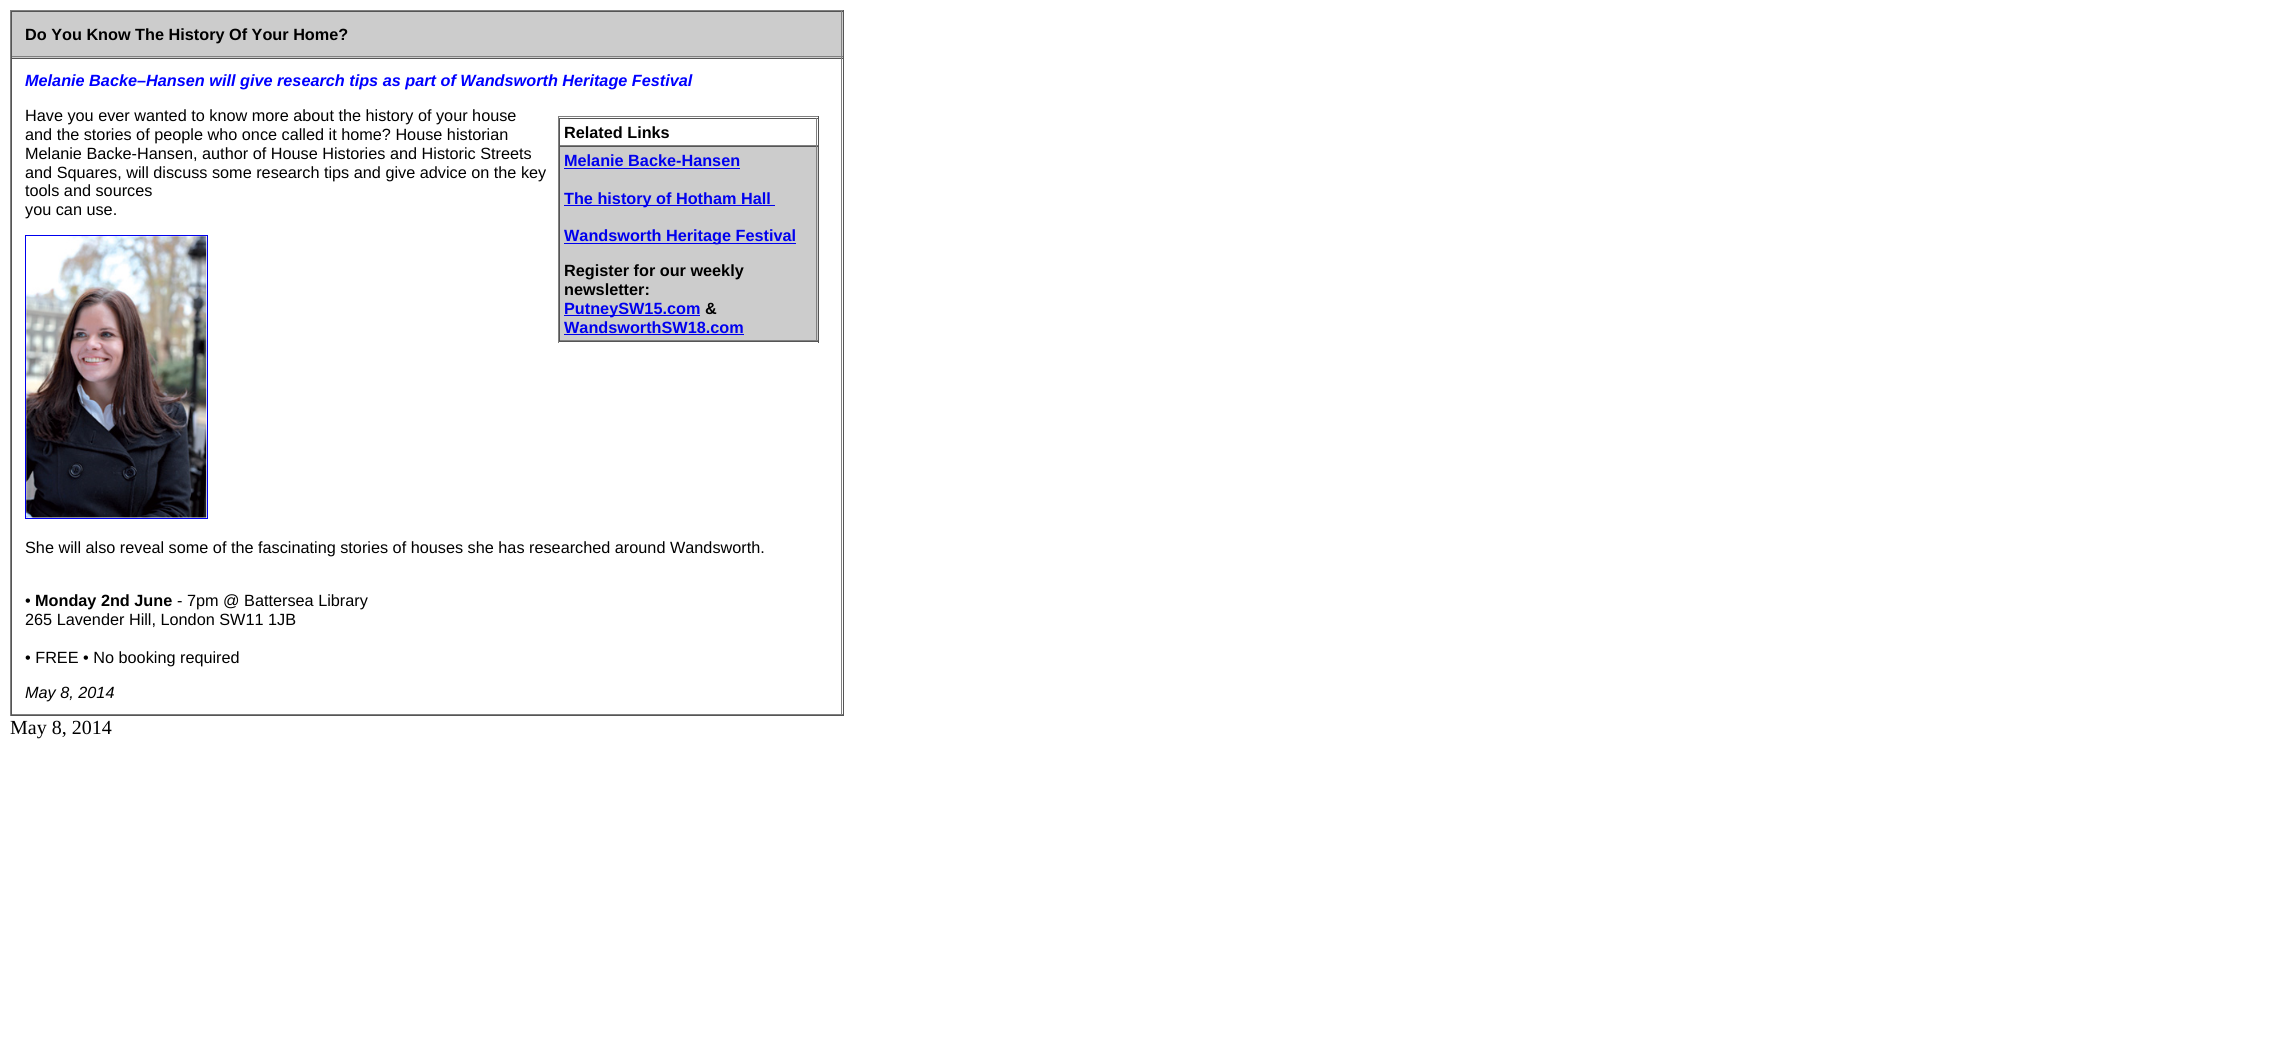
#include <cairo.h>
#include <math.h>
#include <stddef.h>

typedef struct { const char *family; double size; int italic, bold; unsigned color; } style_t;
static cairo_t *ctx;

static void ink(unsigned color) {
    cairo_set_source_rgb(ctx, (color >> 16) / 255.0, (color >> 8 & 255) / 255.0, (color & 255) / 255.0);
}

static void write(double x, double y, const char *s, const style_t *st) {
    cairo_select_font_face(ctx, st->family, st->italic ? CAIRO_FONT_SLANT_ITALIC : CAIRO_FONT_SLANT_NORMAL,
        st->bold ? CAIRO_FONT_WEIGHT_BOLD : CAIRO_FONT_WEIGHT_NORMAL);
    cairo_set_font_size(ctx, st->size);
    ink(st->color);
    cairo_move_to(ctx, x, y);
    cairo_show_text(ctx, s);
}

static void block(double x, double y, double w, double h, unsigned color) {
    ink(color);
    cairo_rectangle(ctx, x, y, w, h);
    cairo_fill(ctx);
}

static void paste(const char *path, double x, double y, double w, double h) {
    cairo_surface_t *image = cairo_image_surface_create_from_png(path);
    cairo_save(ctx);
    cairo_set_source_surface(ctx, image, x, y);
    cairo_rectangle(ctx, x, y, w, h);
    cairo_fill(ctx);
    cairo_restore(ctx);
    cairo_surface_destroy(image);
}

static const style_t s1 = {"Liberation Sans", 16.25, 0, 1, 0x000000};
static const style_t s2 = {"Liberation Sans", 16.25, 1, 1, 0x0000ff};
static const style_t s3 = {"Liberation Sans", 16.25, 0, 0, 0x000000};
static const style_t s4 = {"Liberation Sans", 16.25, 0, 1, 0x0000ee};
static const style_t s5 = {"Liberation Sans", 16.25, 1, 0, 0x000000};
static const style_t s6 = {"Liberation Serif", 20, 0, 0, 0x000000};

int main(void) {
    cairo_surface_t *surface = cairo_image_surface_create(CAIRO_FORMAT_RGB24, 2269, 1064);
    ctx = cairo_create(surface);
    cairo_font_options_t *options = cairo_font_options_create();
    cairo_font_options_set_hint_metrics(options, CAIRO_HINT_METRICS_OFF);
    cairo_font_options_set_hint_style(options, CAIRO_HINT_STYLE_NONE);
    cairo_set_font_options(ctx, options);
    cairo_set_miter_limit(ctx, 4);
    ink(0xffffff);
    cairo_paint(ctx);
    block(10, 10, 834, 1, 0x808080);
    block(843, 10, 1, 706, 0x555555);
    block(10, 715, 834, 1, 0x555555);
    block(10, 10, 1, 706, 0x808080);
    block(12, 12, 831, 46, 0xcccccc);
    block(11, 11, 832, 1, 0x555555);
    block(841, 11, 1, 47, 0x808080);
    block(11, 56, 832, 1, 0x808080);
    block(11, 11, 1, 47, 0x555555);
    write(25, 40, "Do You Know The History Of Your Home?", &s1);
    block(11, 58, 832, 1, 0x555555);
    block(841, 58, 1, 657, 0x808080);
    block(11, 714, 832, 1, 0x808080);
    block(11, 58, 1, 657, 0x555555);
    write(25, 86, "Melanie Backe–Hansen will give research tips as part of Wandsworth Heritage Festival", &s2);
    write(25, 121, "Have you ever wanted to know more about the history of your house", &s3);
    write(25, 140, "and the stories of people who once called it home? House historian", &s3);
    write(25, 159, "Melanie Backe-Hansen, author of House Histories and Historic Streets", &s3);
    write(25, 178, "and Squares, will discuss some research tips and give advice on the key", &s3);
    write(25, 196, "tools and sources", &s3);
    write(25, 215, "you can use.", &s3);
    block(558, 116, 261, 1, 0x808080);
    block(818, 116, 1, 227, 0x555555);
    block(558, 341, 261, 1, 0x555555);
    block(558, 116, 1, 227, 0x808080);
    block(559, 118, 259, 1, 0x555555);
    block(816, 118, 1, 28, 0x808080);
    block(559, 145, 259, 1, 0x808080);
    block(559, 118, 1, 28, 0x555555);
    write(564, 138, "Related Links", &s1);
    block(560, 147, 258, 193, 0xcccccc);
    block(559, 146, 259, 1, 0x555555);
    block(816, 146, 1, 195, 0x808080);
    block(559, 340, 259, 1, 0x808080);
    block(559, 146, 1, 195, 0x555555);
    write(564, 166, "Melanie Backe-Hansen", &s4);
    block(564, 168, 176, 1, 0x0000ee);
    block(564, 205, 211, 1, 0x0000ee);
    write(564, 204, "The history of Hotham Hall", &s4);
    block(564, 243, 232, 1, 0x0000ee);
    write(564, 241, "Wandsworth Heritage Festival", &s4);
    write(564, 276, "Register for our weekly", &s1);
    write(564, 295, "newsletter:", &s1);
    block(564, 315, 136, 1, 0x0000ee);
    write(564, 314, "PutneySW15.com", &s4);
    write(705, 314, "&", &s1);
    write(564, 333, "WandsworthSW18.com", &s4);
    block(564, 334, 180, 1, 0x0000ee);
    cairo_rectangle(ctx, 25.5, 235.5, 182, 283);
    cairo_set_line_width(ctx, 1);
    cairo_stroke(ctx);
    paste("pic1.png", 26, 236, 181, 282);
    write(25, 553, "She will also reveal some of the fascinating stories of houses she has researched around Wandsworth.", &s3);
    write(25, 606, "•", &s3);
    write(35, 606, "Monday 2nd June", &s1);
    write(177, 606, "- 7pm @ Battersea Library", &s3);
    write(25, 625, "265 Lavender Hill, London SW11 1JB", &s3);
    write(25, 663, "• FREE • No booking required", &s3);
    write(25, 698, "May 8, 2014", &s5);
    write(10, 734, "May 8, 2014", &s6);
    cairo_surface_write_to_png(surface, "screenshot.png");
    cairo_font_options_destroy(options);
    cairo_destroy(ctx);
    cairo_surface_destroy(surface);
    return 0;
}
